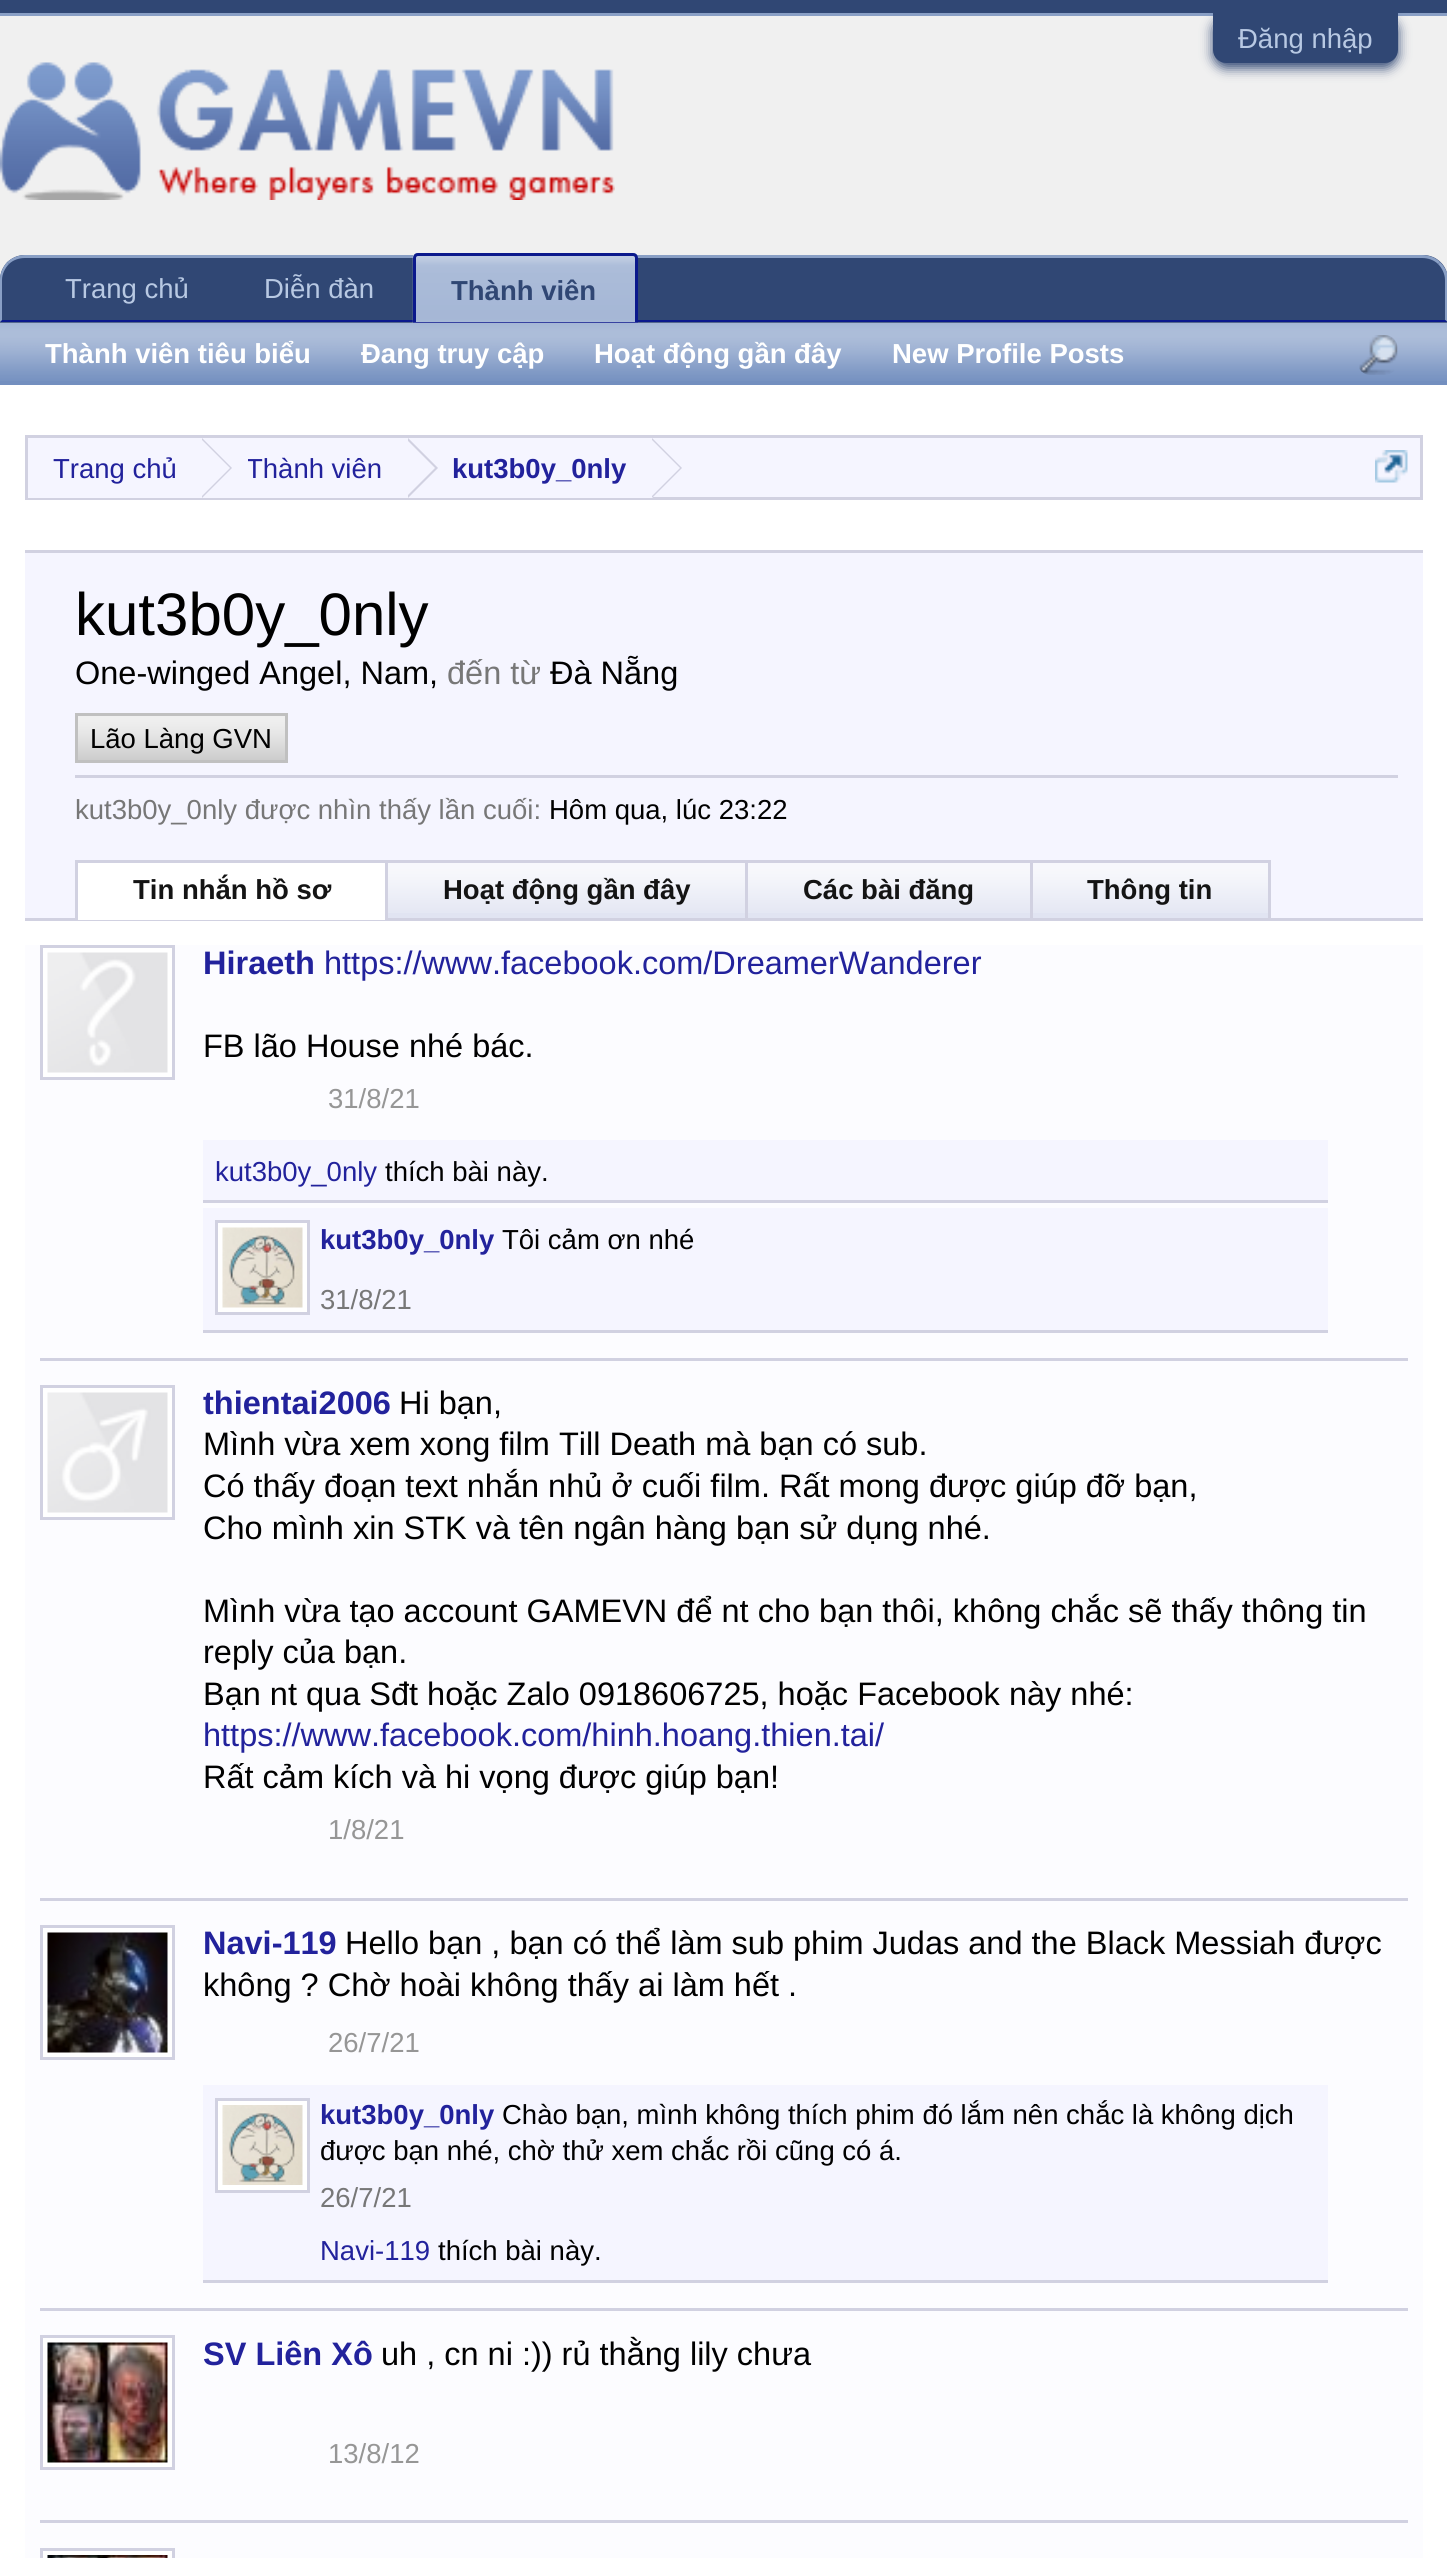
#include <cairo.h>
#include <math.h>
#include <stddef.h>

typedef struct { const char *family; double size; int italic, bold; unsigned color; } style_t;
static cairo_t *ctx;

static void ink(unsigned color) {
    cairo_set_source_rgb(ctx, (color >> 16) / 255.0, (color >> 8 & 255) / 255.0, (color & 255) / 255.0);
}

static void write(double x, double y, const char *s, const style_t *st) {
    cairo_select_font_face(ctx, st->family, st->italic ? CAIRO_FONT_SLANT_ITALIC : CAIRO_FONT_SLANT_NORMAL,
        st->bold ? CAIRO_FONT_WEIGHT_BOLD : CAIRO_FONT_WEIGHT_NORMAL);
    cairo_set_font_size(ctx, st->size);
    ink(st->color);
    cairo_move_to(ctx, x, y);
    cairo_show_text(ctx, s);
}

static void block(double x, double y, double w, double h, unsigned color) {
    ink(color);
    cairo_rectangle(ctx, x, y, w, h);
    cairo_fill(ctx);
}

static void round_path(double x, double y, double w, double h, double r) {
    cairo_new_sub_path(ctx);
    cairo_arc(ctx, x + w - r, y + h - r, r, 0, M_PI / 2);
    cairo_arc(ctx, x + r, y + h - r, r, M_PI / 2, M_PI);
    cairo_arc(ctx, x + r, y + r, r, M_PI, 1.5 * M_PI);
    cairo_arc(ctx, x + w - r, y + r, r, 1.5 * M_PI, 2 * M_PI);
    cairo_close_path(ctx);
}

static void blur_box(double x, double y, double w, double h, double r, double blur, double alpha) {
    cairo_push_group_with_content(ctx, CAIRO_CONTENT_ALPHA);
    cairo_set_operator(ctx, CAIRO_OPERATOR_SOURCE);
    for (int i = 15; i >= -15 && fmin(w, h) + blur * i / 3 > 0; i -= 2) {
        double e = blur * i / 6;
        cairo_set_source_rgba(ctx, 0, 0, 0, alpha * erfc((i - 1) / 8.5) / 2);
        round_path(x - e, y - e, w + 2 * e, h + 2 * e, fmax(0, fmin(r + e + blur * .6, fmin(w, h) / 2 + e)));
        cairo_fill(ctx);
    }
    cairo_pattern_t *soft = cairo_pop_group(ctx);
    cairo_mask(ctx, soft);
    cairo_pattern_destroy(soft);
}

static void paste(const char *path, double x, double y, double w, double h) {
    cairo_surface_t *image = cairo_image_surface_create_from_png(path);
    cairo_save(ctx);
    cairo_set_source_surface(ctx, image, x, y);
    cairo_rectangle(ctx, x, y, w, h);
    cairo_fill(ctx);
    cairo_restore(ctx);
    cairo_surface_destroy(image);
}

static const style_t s1 = {"Liberation Sans", 27.5, 0, 0, 0xb8c9e3};
static const style_t s2 = {"Liberation Sans", 27.5, 0, 1, 0x304774};
static const style_t s3 = {"Liberation Sans", 27.5, 0, 1, 0xffffff};
static const style_t s4 = {"Liberation Sans", 27.5, 0, 0, 0x22229c};
static const style_t s5 = {"Liberation Sans", 27.5, 0, 1, 0x22229c};
static const style_t s6 = {"Liberation Sans", 60, 0, 0, 0x000000};
static const style_t s7 = {"Liberation Sans", 32.5, 0, 0, 0x000000};
static const style_t s8 = {"Liberation Sans", 32.5, 0, 0, 0x777777};
static const style_t s9 = {"Liberation Sans", 27.5, 0, 0, 0x000000};
static const style_t s10 = {"Liberation Sans", 27.5, 0, 0, 0x777777};
static const style_t s11 = {"Liberation Sans", 27.5, 0, 1, 0x141414};
static const style_t s12 = {"Liberation Sans", 32.5, 0, 1, 0x22229c};
static const style_t s13 = {"Liberation Sans", 32.5, 0, 0, 0x22229c};
static const style_t s14 = {"Liberation Sans", 27.5, 0, 0, 0x969696};

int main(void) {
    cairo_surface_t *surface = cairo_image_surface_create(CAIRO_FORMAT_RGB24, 1447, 2558);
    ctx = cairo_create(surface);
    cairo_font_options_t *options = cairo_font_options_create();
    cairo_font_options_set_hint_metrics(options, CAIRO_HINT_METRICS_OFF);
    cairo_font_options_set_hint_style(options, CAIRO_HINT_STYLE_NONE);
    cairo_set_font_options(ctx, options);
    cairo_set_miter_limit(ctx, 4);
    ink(0xf0f0f0);
    cairo_paint(ctx);
    block(0, 0, 1447, 13, 0x304774);
    block(0, 13, 1447, 3, 0x899fc5);
    ink(0x304774);
    blur_box(1213, 18, 185, 50, 13, 6, 1);
    ink(0x304774);
    cairo_new_path(ctx);
    cairo_move_to(ctx, 1213, 13);
    cairo_line_to(ctx, 1398, 13);
    cairo_line_to(ctx, 1398, 50);
    cairo_curve_to(ctx, 1398, 57, 1392, 63, 1385, 63);
    cairo_line_to(ctx, 1226, 63);
    cairo_curve_to(ctx, 1219, 63, 1213, 57, 1213, 50);
    cairo_close_path(ctx);
    cairo_fill(ctx);
    write(1238, 48, "Đăng nhập", &s1);
    paste("pic1.png", 0, 62, 615, 138);
    ink(0x304774);
    cairo_new_path(ctx);
    cairo_move_to(ctx, 25, 255);
    cairo_line_to(ctx, 1423, 255);
    cairo_curve_to(ctx, 1437, 255, 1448, 266, 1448, 280);
    cairo_line_to(ctx, 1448, 323);
    cairo_line_to(ctx, 0, 323);
    cairo_line_to(ctx, 0, 280);
    cairo_curve_to(ctx, 0, 266, 11, 255, 25, 255);
    cairo_close_path(ctx);
    cairo_fill(ctx);
    ink(0x899fc5);
    cairo_new_path(ctx);
    cairo_move_to(ctx, 25, 255);
    cairo_curve_to(ctx, 18, 255, 12, 258, 7, 262);
    cairo_line_to(ctx, 9, 264);
    cairo_curve_to(ctx, 13, 260, 19, 258, 25, 258);
    cairo_line_to(ctx, 1422, 258);
    cairo_curve_to(ctx, 1428, 258, 1434, 260, 1438, 264);
    cairo_line_to(ctx, 1440, 262);
    cairo_curve_to(ctx, 1436, 258, 1429, 255, 1422, 255);
    cairo_close_path(ctx);
    cairo_fill(ctx);
    cairo_new_path(ctx);
    cairo_move_to(ctx, 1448, 322);
    cairo_line_to(ctx, 1445, 320);
    cairo_line_to(ctx, 1445, 280);
    cairo_curve_to(ctx, 1445, 274, 1442, 268, 1438, 264);
    cairo_line_to(ctx, 1440, 262);
    cairo_curve_to(ctx, 1444, 266, 1446, 270, 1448, 275);
    cairo_close_path(ctx);
    cairo_fill(ctx);
    ink(0x0b198c);
    cairo_new_path(ctx);
    cairo_move_to(ctx, 1447, 322);
    cairo_line_to(ctx, 0, 322);
    cairo_line_to(ctx, 2, 320);
    cairo_line_to(ctx, 1445, 320);
    cairo_close_path(ctx);
    cairo_fill(ctx);
    ink(0x899fc5);
    cairo_new_path(ctx);
    cairo_move_to(ctx, 0, 280);
    cairo_line_to(ctx, 0, 322);
    cairo_line_to(ctx, 2, 320);
    cairo_line_to(ctx, 2, 280);
    cairo_curve_to(ctx, 2, 274, 5, 268, 9, 264);
    cairo_line_to(ctx, 7, 262);
    cairo_curve_to(ctx, 3, 267, 0, 273, 0, 280);
    cairo_close_path(ctx);
    cairo_fill(ctx);
    write(65, 298, "Trang chủ", &s1);
    write(264, 298, "Diễn đàn", &s1);
    ink(0x738fbf);
    cairo_new_path(ctx);
    cairo_move_to(ctx, 418, 253);
    cairo_line_to(ctx, 633, 253);
    cairo_curve_to(ctx, 636, 253, 638, 255, 638, 258);
    cairo_line_to(ctx, 638, 325);
    cairo_line_to(ctx, 413, 325);
    cairo_line_to(ctx, 413, 258);
    cairo_curve_to(ctx, 413, 255, 415, 253, 418, 253);
    cairo_close_path(ctx);
    cairo_fill(ctx);
    paste("pic2.png", 412, 255, 226, 68);
    cairo_new_path(ctx);
    cairo_move_to(ctx, 418, 254.5);
    cairo_line_to(ctx, 633, 254.5);
    cairo_curve_to(ctx, 635, 254.5, 636.5, 256, 636.5, 258);
    cairo_line_to(ctx, 636.5, 323.5);
    cairo_line_to(ctx, 414.5, 323.5);
    cairo_line_to(ctx, 414.5, 258);
    cairo_curve_to(ctx, 414.5, 256, 416, 254.5, 418, 254.5);
    cairo_close_path(ctx);
    ink(0x0b198c);
    cairo_set_line_width(ctx, 3);
    cairo_stroke(ctx);
    write(451, 300, "Thành viên", &s2);
    block(0, 323, 1447, 62, 0x738fbf);
    paste("pic3.png", 0, 322, 1447, 59);
    write(45, 363, "Thành viên tiêu biểu", &s3);
    write(361, 363, "Đang truy cập", &s3);
    write(594, 363, "Hoạt động gần đây", &s3);
    write(892, 363, "New Profile Posts", &s3);
    paste("pic4.png", 1359, 335, 39, 40);
    block(0, 385, 1447, 2173, 0xffffff);
    block(653, 438, 767, 59, 0xf5f5ff);
    cairo_rectangle(ctx, 26.5, 436.5, 1395, 62);
    ink(0xd1d1e1);
    cairo_stroke(ctx);
    block(28, 438, 625, 60, 0xf5f5ff);
    write(53, 478, "Trang chủ", &s4);
    ink(0xd1d1e1);
    cairo_new_path(ctx);
    cairo_move_to(ctx, 202, 498);
    cairo_line_to(ctx, 202, 438);
    cairo_line_to(ctx, 232, 468);
    cairo_close_path(ctx);
    cairo_fill(ctx);
    ink(0xf5f5ff);
    cairo_new_path(ctx);
    cairo_move_to(ctx, 200, 498);
    cairo_line_to(ctx, 200, 438);
    cairo_line_to(ctx, 230, 468);
    cairo_close_path(ctx);
    cairo_fill(ctx);
    cairo_save(ctx);
    cairo_rectangle(ctx, 248, 438, 135, 60);
    cairo_clip(ctx);
    write(246, 478, "Thành viên", &s4);
    cairo_restore(ctx);
    ink(0xd1d1e1);
    cairo_new_path(ctx);
    cairo_move_to(ctx, 408, 498);
    cairo_line_to(ctx, 408, 438);
    cairo_line_to(ctx, 438, 468);
    cairo_close_path(ctx);
    cairo_fill(ctx);
    ink(0xf5f5ff);
    cairo_new_path(ctx);
    cairo_move_to(ctx, 405, 498);
    cairo_line_to(ctx, 405, 438);
    cairo_line_to(ctx, 435, 468);
    cairo_close_path(ctx);
    cairo_fill(ctx);
    write(452, 478, "kut3b0y_0nly", &s5);
    ink(0xd1d1e1);
    cairo_new_path(ctx);
    cairo_move_to(ctx, 652, 498);
    cairo_line_to(ctx, 652, 438);
    cairo_line_to(ctx, 682, 468);
    cairo_close_path(ctx);
    cairo_fill(ctx);
    ink(0xf5f5ff);
    cairo_new_path(ctx);
    cairo_move_to(ctx, 650, 498);
    cairo_line_to(ctx, 650, 438);
    cairo_line_to(ctx, 680, 468);
    cairo_close_path(ctx);
    cairo_fill(ctx);
    paste("pic5.png", 1375, 450, 33, 33);
    block(25, 550, 1398, 3, 0xd1d1e1);
    block(25, 553, 1398, 365, 0xf5f5ff);
    write(75, 635, "kut3b0y_0nly", &s6);
    write(75, 684, "One-winged Angel, Nam,", &s7);
    write(447, 684, "đến từ", &s8);
    write(550, 684, "Đà Nẵng", &s7);
    block(78, 716, 207, 44, 0xc0c0c0);
    paste("pic6.png", 78, 716, 207, 44);
    cairo_rectangle(ctx, 76.5, 714.5, 210, 47);
    cairo_stroke(ctx);
    write(90, 748, "Lão Làng GVN", &s9);
    block(75, 775, 1323, 3, 0xd1d1e1);
    write(75, 819, "kut3b0y_0nly được nhìn thấy lần cuối:", &s10);
    write(549, 819, "Hôm qua, lúc 23:22", &s9);
    block(25, 918, 1398, 3, 0xd1d1e1);
    block(78, 863, 307, 57, 0xffffff);
    block(75, 860, 1195, 3, 0xd1d1e1);
    block(75, 860, 3, 60, 0xd1d1e1);
    write(133, 899, "Tin nhắn hồ sơ", &s11);
    block(388, 863, 357, 55, 0xe1e4f2);
    paste("pic7.png", 388, 863, 357, 50);
    block(385, 860, 3, 58, 0xd1d1e1);
    write(443, 899, "Hoạt động gần đây", &s11);
    block(748, 863, 282, 55, 0xe1e4f2);
    paste("pic8.png", 748, 863, 282, 50);
    block(745, 860, 3, 58, 0xd1d1e1);
    write(803, 899, "Các bài đăng", &s11);
    block(1033, 863, 235, 55, 0xe1e4f2);
    paste("pic9.png", 1033, 863, 235, 50);
    block(1268, 860, 3, 58, 0xd1d1e1);
    block(1030, 860, 3, 58, 0xd1d1e1);
    write(1087, 899, "Thông tin", &s11);
    block(25, 945, 1398, 1613, 0xfcfcff);
    block(40, 1358, 1368, 3, 0xd1d1e1);
    ink(0xffffff);
    cairo_rectangle(ctx, 41.5, 946.5, 132, 132);
    cairo_fill_preserve(ctx);
    ink(0xd1d1e1);
    cairo_stroke(ctx);
    paste("pic10.png", 47, 952, 121, 121);
    write(203, 974, "Hiraeth", &s12);
    write(324, 974, "https://www.facebook.com/DreamerWanderer", &s13);
    write(203, 1057, "FB lão House nhé bác.", &s7);
    write(328, 1108, "31/8/21", &s14);
    block(203, 1140, 1125, 60, 0xf5f5ff);
    block(203, 1200, 1125, 3, 0xd1d1e1);
    write(215, 1181, "kut3b0y_0nly", &s4);
    write(385, 1181, "thích bài này.", &s9);
    block(203, 1208, 1125, 122, 0xf5f5ff);
    block(203, 1330, 1125, 3, 0xd1d1e1);
    ink(0xffffff);
    cairo_rectangle(ctx, 216.5, 1221.5, 92, 92);
    cairo_fill_preserve(ctx);
    ink(0xd1d1e1);
    cairo_stroke(ctx);
    paste("pic11.png", 222, 1227, 81, 81);
    write(320, 1249, "kut3b0y_0nly", &s5);
    write(502, 1249, "Tôi cảm ơn nhé", &s9);
    write(320, 1309, "31/8/21", &s10);
    block(40, 1898, 1368, 3, 0xd1d1e1);
    ink(0xffffff);
    cairo_rectangle(ctx, 41.5, 1386.5, 132, 132);
    cairo_fill_preserve(ctx);
    ink(0xd1d1e1);
    cairo_stroke(ctx);
    paste("pic12.png", 47, 1392, 121, 121);
    write(203, 1414, "thientai2006", &s12);
    write(399, 1414, "Hi bạn,", &s7);
    write(203, 1455, "Mình vừa xem xong film Till Death mà bạn có sub.", &s7);
    write(203, 1497, "Có thấy đoạn text nhắn nhủ ở cuối film. Rất mong được giúp đỡ bạn,", &s7);
    write(203, 1539, "Cho mình xin STK và tên ngân hàng bạn sử dụng nhé.", &s7);
    write(203, 1622, "Mình vừa tạo account GAMEVN để nt cho bạn thôi, không chắc sẽ thấy thông tin", &s7);
    write(203, 1663, "reply của bạn.", &s7);
    write(203, 1705, "Bạn nt qua Sđt hoặc Zalo 0918606725, hoặc Facebook này nhé:", &s7);
    write(203, 1746, "https://www.facebook.com/hinh.hoang.thien.tai/", &s13);
    write(203, 1788, "Rất cảm kích và hi vọng được giúp bạn!", &s7);
    write(328, 1839, "1/8/21", &s14);
    block(40, 2308, 1368, 3, 0xd1d1e1);
    ink(0xffffff);
    cairo_rectangle(ctx, 41.5, 1926.5, 132, 132);
    cairo_fill_preserve(ctx);
    ink(0xd1d1e1);
    cairo_stroke(ctx);
    paste("pic13.png", 47, 1932, 121, 121);
    write(203, 1954, "Navi-119", &s12);
    write(345, 1954, "Hello bạn , bạn có thể làm sub phim Judas and the Black Messiah được", &s7);
    write(203, 1996, "không ? Chờ hoài không thấy ai làm hết .", &s7);
    write(328, 2052, "26/7/21", &s14);
    block(203, 2085, 1125, 195, 0xf5f5ff);
    block(203, 2280, 1125, 3, 0xd1d1e1);
    ink(0xffffff);
    cairo_rectangle(ctx, 216.5, 2099.5, 92, 92);
    cairo_fill_preserve(ctx);
    ink(0xd1d1e1);
    cairo_stroke(ctx);
    paste("pic14.png", 222, 2105, 81, 80);
    write(320, 2124, "kut3b0y_0nly", &s5);
    write(502, 2124, "Chào bạn, mình không thích phim đó lắm nên chắc là không dịch", &s9);
    write(320, 2160, "được bạn nhé, chờ thử xem chắc rồi cũng có á.", &s9);
    write(320, 2207, "26/7/21", &s10);
    write(320, 2260, "Navi-119", &s4);
    write(438, 2260, "thích bài này.", &s9);
    block(40, 2520, 1368, 3, 0xd1d1e1);
    ink(0xffffff);
    cairo_rectangle(ctx, 41.5, 2336.5, 132, 132);
    cairo_fill_preserve(ctx);
    ink(0xd1d1e1);
    cairo_stroke(ctx);
    paste("pic15.png", 47, 2342, 121, 121);
    write(203, 2365, "SV Liên Xô", &s12);
    write(381, 2365, "uh , cn ni :)) rủ thằng lily chưa", &s7);
    write(328, 2463, "13/8/12", &s14);
    ink(0xffffff);
    cairo_rectangle(ctx, 41.5, 2549.5, 132, 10);
    cairo_fill_preserve(ctx);
    ink(0xd1d1e1);
    cairo_stroke(ctx);
    paste("pic16.png", 47, 2555, 121, 3);
    cairo_surface_write_to_png(surface, "screenshot.png");
    cairo_font_options_destroy(options);
    cairo_destroy(ctx);
    cairo_surface_destroy(surface);
    return 0;
}
